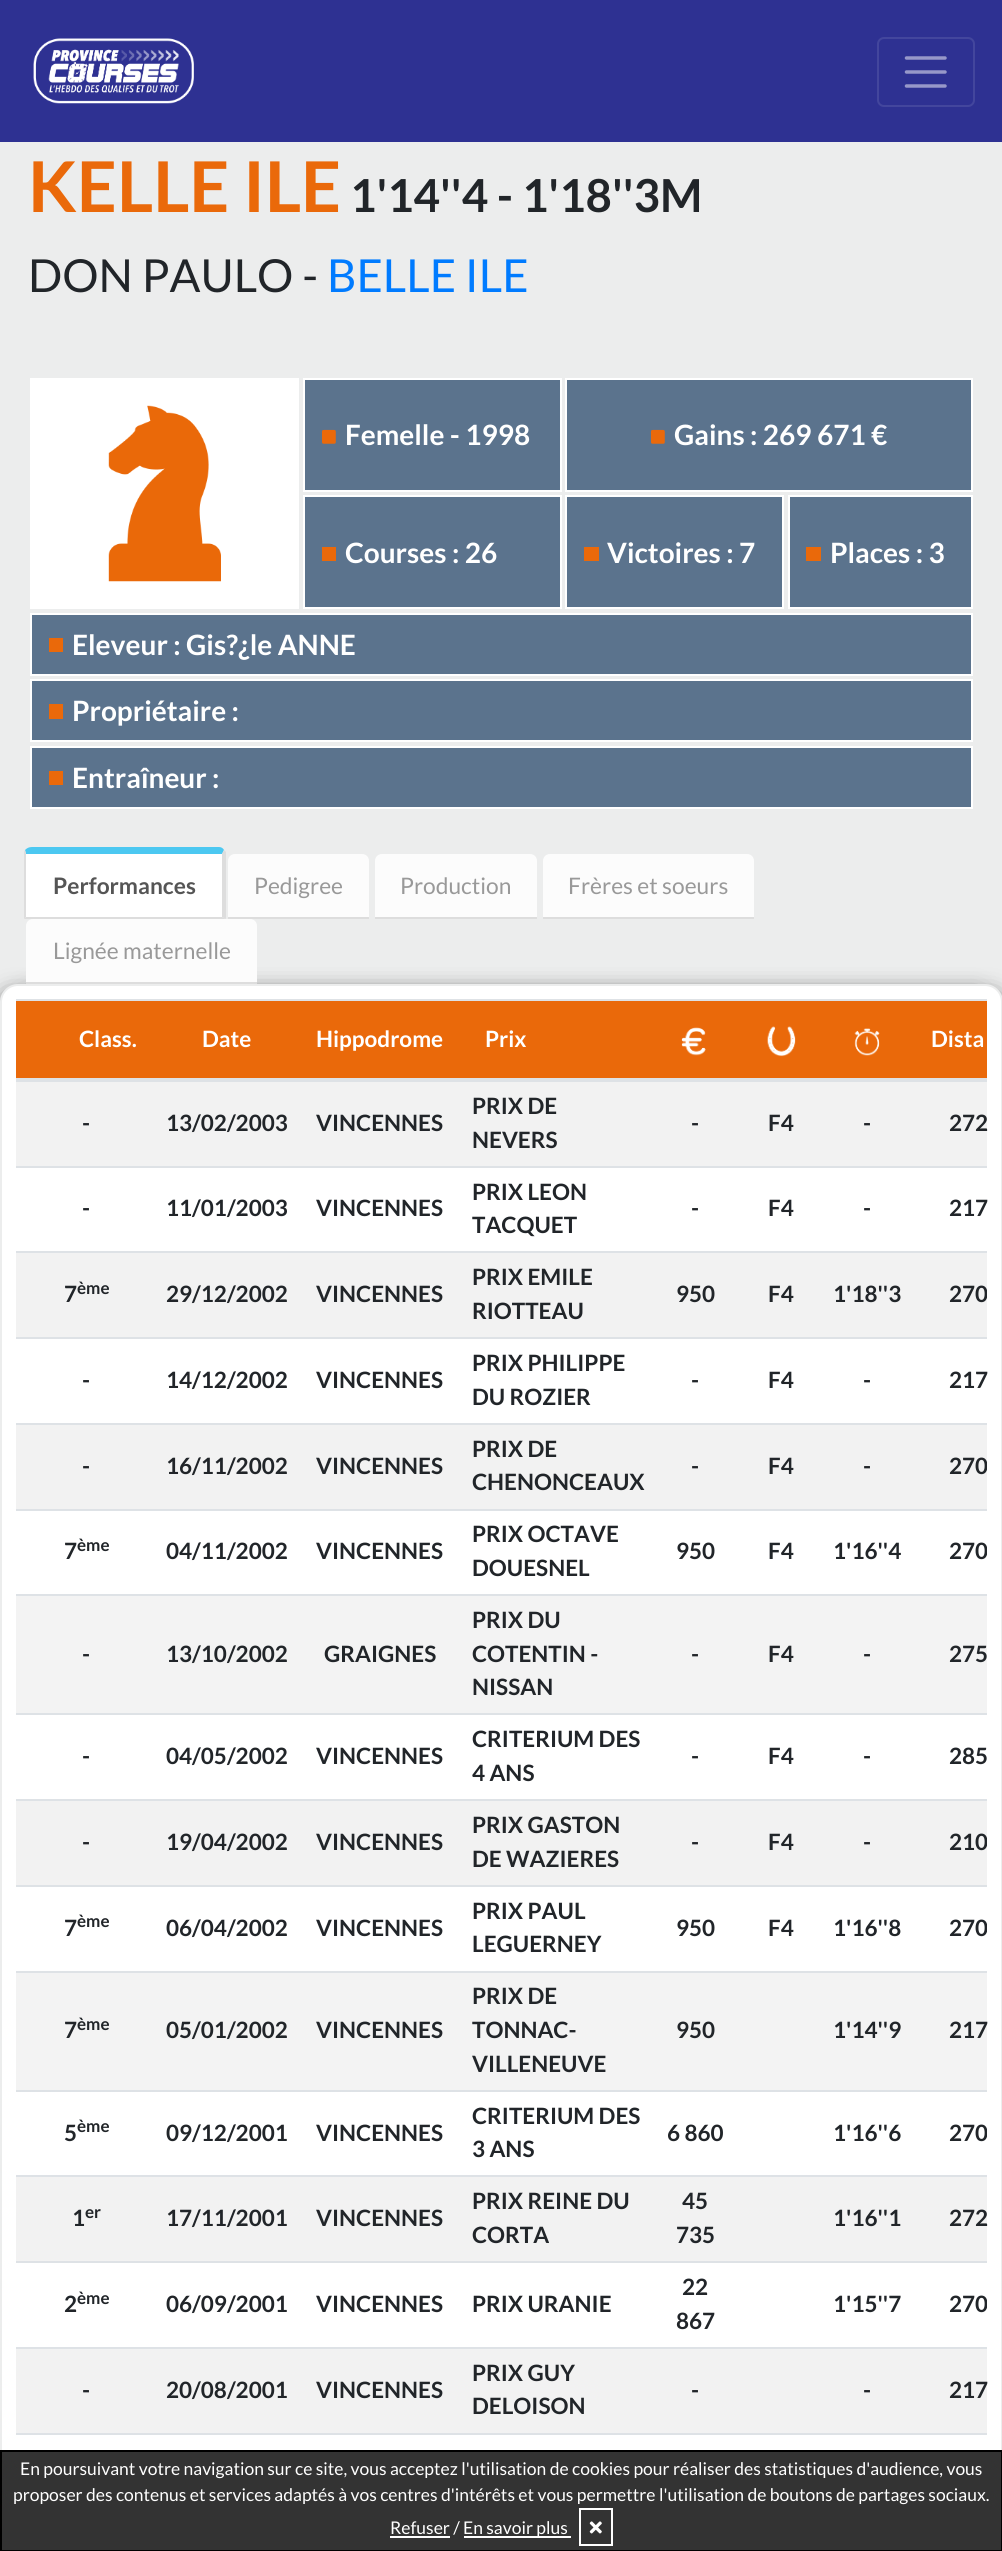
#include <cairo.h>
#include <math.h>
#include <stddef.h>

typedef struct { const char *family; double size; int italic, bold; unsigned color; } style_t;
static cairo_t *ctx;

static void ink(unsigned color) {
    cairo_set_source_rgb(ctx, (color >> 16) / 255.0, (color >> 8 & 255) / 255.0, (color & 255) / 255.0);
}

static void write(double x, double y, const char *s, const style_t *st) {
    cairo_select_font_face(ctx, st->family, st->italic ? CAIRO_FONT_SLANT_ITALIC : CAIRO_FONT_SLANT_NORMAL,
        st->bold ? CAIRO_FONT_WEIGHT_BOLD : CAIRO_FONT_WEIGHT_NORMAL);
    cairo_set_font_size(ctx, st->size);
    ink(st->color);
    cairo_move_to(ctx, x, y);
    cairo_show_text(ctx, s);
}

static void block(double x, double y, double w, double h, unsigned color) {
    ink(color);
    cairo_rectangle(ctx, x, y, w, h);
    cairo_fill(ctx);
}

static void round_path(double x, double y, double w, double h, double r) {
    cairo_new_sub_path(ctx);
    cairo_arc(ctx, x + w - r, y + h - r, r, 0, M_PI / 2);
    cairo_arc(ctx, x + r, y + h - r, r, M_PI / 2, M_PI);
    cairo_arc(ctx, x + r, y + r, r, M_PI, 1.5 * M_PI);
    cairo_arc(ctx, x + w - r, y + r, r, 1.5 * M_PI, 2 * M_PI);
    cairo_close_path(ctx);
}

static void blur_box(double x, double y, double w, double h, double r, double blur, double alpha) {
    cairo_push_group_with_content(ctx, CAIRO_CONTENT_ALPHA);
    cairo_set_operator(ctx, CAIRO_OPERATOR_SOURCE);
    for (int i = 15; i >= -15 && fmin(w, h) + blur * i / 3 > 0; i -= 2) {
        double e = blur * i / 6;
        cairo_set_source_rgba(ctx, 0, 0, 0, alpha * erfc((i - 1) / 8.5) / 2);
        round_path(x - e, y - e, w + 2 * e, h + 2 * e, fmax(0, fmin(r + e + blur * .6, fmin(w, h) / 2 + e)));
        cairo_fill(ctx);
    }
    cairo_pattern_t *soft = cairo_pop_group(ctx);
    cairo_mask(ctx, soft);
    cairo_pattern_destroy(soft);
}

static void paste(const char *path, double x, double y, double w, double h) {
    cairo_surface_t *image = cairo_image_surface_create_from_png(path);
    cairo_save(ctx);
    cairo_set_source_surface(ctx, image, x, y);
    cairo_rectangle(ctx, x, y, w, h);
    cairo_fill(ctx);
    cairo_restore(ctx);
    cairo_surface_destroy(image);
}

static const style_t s1 = {"Lato", 70, 0, 1, 0xea690a};
static const style_t s2 = {"Lato", 45.5, 0, 1, 0x212529};
static const style_t s3 = {"Lato", 45.5, 0, 0, 0x212529};
static const style_t s4 = {"Lato", 45.5, 0, 0, 0x007bff};
static const style_t s5 = {"Lato", 28, 0, 1, 0xffffff};
static const style_t s6 = {"Lato", 22.75, 0, 1, 0x555555};
static const style_t s7 = {"Lato", 22.75, 0, 0, 0x999999};
static const style_t s8 = {"Lato", 22.5, 0, 1, 0xffffff};
static const style_t s9 = {"Lato", 22.5, 0, 1, 0x212529};
static const style_t s10 = {"Lato", 17, 0, 1, 0x212529};
static const style_t s11 = {"Lato", 17.5, 0, 0, 0xffffff};

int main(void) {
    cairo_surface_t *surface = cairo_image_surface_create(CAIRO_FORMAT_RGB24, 1002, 2551);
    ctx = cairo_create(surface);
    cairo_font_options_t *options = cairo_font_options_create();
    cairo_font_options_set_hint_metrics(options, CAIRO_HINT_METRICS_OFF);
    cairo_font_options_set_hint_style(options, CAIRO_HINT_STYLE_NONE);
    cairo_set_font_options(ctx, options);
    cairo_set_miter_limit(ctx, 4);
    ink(0xeceded);
    cairo_paint(ctx);
    block(0, 0, 1002, 142, 0x2e3192);
    paste("pic1.png", 33, 38, 161, 66);
    round_path(878, 38, 96, 68, 6);
    ink(0x43469d);
    cairo_stroke(ctx);
    cairo_new_path(ctx);
    cairo_move_to(ctx, 906.5, 58);
    cairo_line_to(ctx, 945, 58);
    cairo_move_to(ctx, 906.5, 72);
    cairo_line_to(ctx, 945, 72);
    cairo_move_to(ctx, 906.5, 86);
    cairo_line_to(ctx, 945, 86);
    ink(0x9798c9);
    cairo_set_line_width(ctx, 3.5);
    cairo_set_line_cap(ctx, CAIRO_LINE_CAP_ROUND);
    cairo_stroke(ctx);
    write(28, 212, "KELLE ILE", &s1);
    write(350, 212, "1'14''4 - 1'18''3M", &s2);
    write(28, 292, "DON PAULO -", &s3);
    write(327, 292, "BELLE ILE", &s4);
    block(30, 378, 269, 231, 0xffffff);
    paste("pic2.png", 108, 405, 113, 177);
    ink(0x5b738d);
    cairo_rectangle(ctx, 304, 379, 257, 112);
    cairo_fill_preserve(ctx);
    ink(0xffffff);
    cairo_set_line_width(ctx, 2);
    cairo_set_line_cap(ctx, CAIRO_LINE_CAP_BUTT);
    cairo_stroke(ctx);
    paste("pic3.png", 322, 429, 14, 15);
    write(345, 445, "Femelle - 1998", &s5);
    ink(0x5b738d);
    cairo_rectangle(ctx, 566, 379, 406, 112);
    cairo_fill_preserve(ctx);
    ink(0xffffff);
    cairo_stroke(ctx);
    paste("pic3.png", 651, 429, 14, 15);
    write(674, 445, "Gains : 269 671 €", &s5);
    ink(0x5b738d);
    cairo_rectangle(ctx, 304, 496, 257, 112);
    cairo_fill_preserve(ctx);
    ink(0xffffff);
    cairo_stroke(ctx);
    block(322, 547, 14, 14, 0xea690a);
    write(345, 563, "Courses : 26", &s5);
    ink(0x5b738d);
    cairo_rectangle(ctx, 566, 496, 217, 112);
    cairo_fill_preserve(ctx);
    ink(0xffffff);
    cairo_stroke(ctx);
    block(584, 547, 15, 14, 0xea690a);
    write(607, 563, "Victoires : 7", &s5);
    ink(0x5b738d);
    cairo_rectangle(ctx, 789, 496, 183, 112);
    cairo_fill_preserve(ctx);
    ink(0xffffff);
    cairo_stroke(ctx);
    block(806, 547, 15, 14, 0xea690a);
    write(830, 563, "Places : 3", &s5);
    ink(0x5b738d);
    cairo_rectangle(ctx, 31, 614, 941, 61);
    cairo_fill_preserve(ctx);
    ink(0xffffff);
    cairo_stroke(ctx);
    block(49, 638, 14, 14, 0xea690a);
    write(72, 655, "Eleveur : Gis?¿le ANNE", &s5);
    ink(0x5b738d);
    cairo_rectangle(ctx, 31, 680, 941, 61);
    cairo_fill_preserve(ctx);
    ink(0xffffff);
    cairo_stroke(ctx);
    block(49, 704, 14, 15, 0xea690a);
    write(72, 721, "Propriétaire :", &s5);
    ink(0x5b738d);
    cairo_rectangle(ctx, 31, 747, 941, 61);
    cairo_fill_preserve(ctx);
    ink(0xffffff);
    cairo_stroke(ctx);
    block(49, 771, 14, 14, 0xea690a);
    write(72, 788, "Entraîneur :", &s5);
    cairo_new_path(ctx);
    cairo_move_to(ctx, 32, 854);
    cairo_line_to(ctx, 222, 854);
    cairo_line_to(ctx, 222, 917);
    cairo_line_to(ctx, 26, 917);
    cairo_line_to(ctx, 26, 854);
    cairo_close_path(ctx);
    cairo_fill(ctx);
    ink(0x4cc8f1);
    cairo_new_path(ctx);
    cairo_move_to(ctx, 32, 847);
    cairo_curve_to(ctx, 29, 847, 27, 848, 25, 850);
    cairo_line_to(ctx, 26, 854);
    cairo_line_to(ctx, 222, 854);
    cairo_line_to(ctx, 224, 850);
    cairo_curve_to(ctx, 223, 848, 221, 847, 219, 847);
    cairo_close_path(ctx);
    cairo_fill(ctx);
    ink(0xdddddd);
    cairo_new_path(ctx);
    cairo_move_to(ctx, 224, 850);
    cairo_line_to(ctx, 226, 852);
    cairo_line_to(ctx, 226, 919);
    cairo_line_to(ctx, 222, 917);
    cairo_line_to(ctx, 222, 854);
    cairo_close_path(ctx);
    cairo_fill(ctx);
    cairo_new_path(ctx);
    cairo_move_to(ctx, 226, 919);
    cairo_line_to(ctx, 222, 917);
    cairo_line_to(ctx, 26, 917);
    cairo_line_to(ctx, 24, 919);
    cairo_close_path(ctx);
    cairo_fill(ctx);
    cairo_new_path(ctx);
    cairo_move_to(ctx, 24, 919);
    cairo_line_to(ctx, 24, 852);
    cairo_line_to(ctx, 25, 850);
    cairo_line_to(ctx, 26, 854);
    cairo_line_to(ctx, 26, 917);
    cairo_close_path(ctx);
    cairo_fill(ctx);
    write(53, 894, "Performances", &s6);
    ink(0xfcfcfc);
    cairo_new_path(ctx);
    cairo_move_to(ctx, 235, 854);
    cairo_line_to(ctx, 362, 854);
    cairo_curve_to(ctx, 366, 854, 369, 857, 369, 861);
    cairo_line_to(ctx, 369, 919);
    cairo_line_to(ctx, 228, 919);
    cairo_line_to(ctx, 228, 861);
    cairo_curve_to(ctx, 228, 857, 231, 854, 235, 854);
    cairo_close_path(ctx);
    cairo_fill(ctx);
    block(228, 917, 141, 2, 0xdddddd);
    write(254, 894, "Pedigree", &s7);
    ink(0xfcfcfc);
    cairo_new_path(ctx);
    cairo_move_to(ctx, 382, 854);
    cairo_line_to(ctx, 530, 854);
    cairo_curve_to(ctx, 534, 854, 537, 857, 537, 861);
    cairo_line_to(ctx, 537, 919);
    cairo_line_to(ctx, 375, 919);
    cairo_line_to(ctx, 375, 861);
    cairo_curve_to(ctx, 375, 857, 378, 854, 382, 854);
    cairo_close_path(ctx);
    cairo_fill(ctx);
    block(375, 917, 162, 2, 0xdddddd);
    write(400, 894, "Production", &s7);
    ink(0xfcfcfc);
    cairo_new_path(ctx);
    cairo_move_to(ctx, 550, 854);
    cairo_line_to(ctx, 747, 854);
    cairo_curve_to(ctx, 751, 854, 754, 857, 754, 861);
    cairo_line_to(ctx, 754, 919);
    cairo_line_to(ctx, 543, 919);
    cairo_line_to(ctx, 543, 861);
    cairo_curve_to(ctx, 543, 857, 546, 854, 550, 854);
    cairo_close_path(ctx);
    cairo_fill(ctx);
    block(543, 917, 211, 2, 0xdddddd);
    write(568, 894, "Frères et soeurs", &s7);
    ink(0x646464);
    blur_box(21, 996, 978, 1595, 5, 11.5, 1);
    blur_box(4, 996, 978, 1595, 5, 11.5, 1);
    ink(0xfcfcfc);
    cairo_new_path(ctx);
    cairo_move_to(ctx, 33, 919);
    cairo_line_to(ctx, 250, 919);
    cairo_curve_to(ctx, 254, 919, 257, 922, 257, 926);
    cairo_line_to(ctx, 257, 984);
    cairo_line_to(ctx, 26, 984);
    cairo_line_to(ctx, 26, 926);
    cairo_curve_to(ctx, 26, 922, 29, 919, 33, 919);
    cairo_close_path(ctx);
    cairo_fill(ctx);
    block(26, 982, 231, 2, 0xdddddd);
    write(53, 959, "Lignée maternelle", &s7);
    ink(0xffffff);
    round_path(1, 985, 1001, 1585, 17);
    cairo_fill_preserve(ctx);
    ink(0xeceded);
    cairo_stroke(ctx);
    block(16, 1001, 971, 77, 0xea690a);
    write(79, 1047, "Class.", &s8);
    write(202, 1047, "Date", &s8);
    write(316, 1047, "Hippodrome", &s8);
    write(485, 1047, "Prix", &s8);
    paste("pic4.png", 681, 1027, 25, 29);
    paste("pic5.png", 767, 1026, 29, 31);
    paste("pic6.png", 854, 1028, 26, 28);
    block(16, 999, 971, 2, 0xdee2e6);
    block(16, 1078, 971, 4, 0xdee2e6);
    write(931, 1047, "Dista", &s8);
    block(16, 1082, 971, 84, 0xf2f2f2);
    write(82, 1131, "-", &s9);
    write(166, 1131, "13/02/2003", &s9);
    write(316, 1131, "VINCENNES", &s9);
    write(472, 1114, "PRIX DE", &s9);
    write(472, 1148, "NEVERS", &s9);
    write(691, 1131, "-", &s9);
    write(768, 1131, "F4", &s9);
    write(863, 1131, "-", &s9);
    write(949, 1131, "272", &s9);
    write(82, 1216, "-", &s9);
    write(166, 1216, "11/01/2003", &s9);
    write(316, 1216, "VINCENNES", &s9);
    write(472, 1200, "PRIX LEON", &s9);
    write(472, 1233, "TACQUET", &s9);
    write(691, 1216, "-", &s9);
    write(768, 1216, "F4", &s9);
    write(863, 1216, "-", &s9);
    block(16, 1166, 971, 2, 0xdee2e6);
    write(949, 1216, "217", &s9);
    block(16, 1253, 971, 84, 0xf2f2f2);
    write(64, 1302, "7", &s9);
    write(77, 1294, "ème", &s10);
    write(166, 1302, "29/12/2002", &s9);
    write(316, 1302, "VINCENNES", &s9);
    write(472, 1285, "PRIX EMILE", &s9);
    write(472, 1319, "RIOTTEAU", &s9);
    write(676, 1302, "950", &s9);
    write(768, 1302, "F4", &s9);
    write(833, 1302, "1'18''3", &s9);
    block(16, 1251, 971, 2, 0xdee2e6);
    cairo_save(ctx);
    cairo_rectangle(ctx, 16, 999, 971, 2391);
    cairo_clip(ctx);
    write(949, 1302, "270", &s9);
    cairo_restore(ctx);
    write(82, 1388, "-", &s9);
    write(166, 1388, "14/12/2002", &s9);
    write(316, 1388, "VINCENNES", &s9);
    write(472, 1371, "PRIX PHILIPPE", &s9);
    write(472, 1405, "DU ROZIER", &s9);
    write(691, 1388, "-", &s9);
    write(768, 1388, "F4", &s9);
    write(863, 1388, "-", &s9);
    block(16, 1337, 971, 2, 0xdee2e6);
    write(949, 1388, "217", &s9);
    block(16, 1425, 971, 84, 0xf2f2f2);
    write(82, 1474, "-", &s9);
    write(166, 1474, "16/11/2002", &s9);
    write(316, 1474, "VINCENNES", &s9);
    write(472, 1457, "PRIX DE", &s9);
    write(472, 1490, "CHENONCEAUX", &s9);
    write(691, 1474, "-", &s9);
    write(768, 1474, "F4", &s9);
    write(863, 1474, "-", &s9);
    block(16, 1423, 971, 2, 0xdee2e6);
    cairo_save(ctx);
    cairo_rectangle(ctx, 16, 999, 971, 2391);
    cairo_clip(ctx);
    write(949, 1474, "270", &s9);
    cairo_restore(ctx);
    write(64, 1559, "7", &s9);
    write(77, 1551, "ème", &s10);
    write(166, 1559, "04/11/2002", &s9);
    write(316, 1559, "VINCENNES", &s9);
    write(472, 1542, "PRIX OCTAVE", &s9);
    write(472, 1576, "DOUESNEL", &s9);
    write(676, 1559, "950", &s9);
    write(768, 1559, "F4", &s9);
    write(833, 1559, "1'16''4", &s9);
    block(16, 1509, 971, 2, 0xdee2e6);
    cairo_save(ctx);
    cairo_rectangle(ctx, 16, 999, 971, 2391);
    cairo_clip(ctx);
    write(949, 1559, "270", &s9);
    cairo_restore(ctx);
    block(16, 1596, 971, 117, 0xf3f3f3);
    write(82, 1662, "-", &s9);
    write(166, 1662, "13/10/2002", &s9);
    write(324, 1662, "GRAIGNES", &s9);
    write(472, 1628, "PRIX DU", &s9);
    write(472, 1662, "COTENTIN -", &s9);
    write(472, 1695, "NISSAN", &s9);
    write(691, 1662, "-", &s9);
    write(768, 1662, "F4", &s9);
    write(863, 1662, "-", &s9);
    block(16, 1594, 971, 2, 0xdee2e6);
    write(949, 1662, "275", &s9);
    write(82, 1764, "-", &s9);
    write(166, 1764, "04/05/2002", &s9);
    write(316, 1764, "VINCENNES", &s9);
    write(472, 1747, "CRITERIUM DES", &s9);
    write(472, 1781, "4 ANS", &s9);
    write(691, 1764, "-", &s9);
    write(768, 1764, "F4", &s9);
    write(863, 1764, "-", &s9);
    block(16, 1713, 971, 2, 0xdee2e6);
    write(949, 1764, "285", &s9);
    block(16, 1801, 971, 84, 0xf2f2f2);
    write(82, 1850, "-", &s9);
    write(166, 1850, "19/04/2002", &s9);
    write(316, 1850, "VINCENNES", &s9);
    write(472, 1833, "PRIX GASTON", &s9);
    write(472, 1867, "DE WAZIERES", &s9);
    write(691, 1850, "-", &s9);
    write(768, 1850, "F4", &s9);
    write(863, 1850, "-", &s9);
    block(16, 1799, 971, 2, 0xdee2e6);
    cairo_save(ctx);
    cairo_rectangle(ctx, 16, 999, 971, 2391);
    cairo_clip(ctx);
    write(949, 1850, "210", &s9);
    cairo_restore(ctx);
    write(64, 1936, "7", &s9);
    write(77, 1927, "ème", &s10);
    write(166, 1936, "06/04/2002", &s9);
    write(316, 1936, "VINCENNES", &s9);
    write(472, 1919, "PRIX PAUL", &s9);
    write(472, 1952, "LEGUERNEY", &s9);
    write(676, 1936, "950", &s9);
    write(768, 1936, "F4", &s9);
    write(833, 1936, "1'16''8", &s9);
    block(16, 1885, 971, 2, 0xdee2e6);
    cairo_save(ctx);
    cairo_rectangle(ctx, 16, 999, 971, 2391);
    cairo_clip(ctx);
    write(949, 1936, "270", &s9);
    cairo_restore(ctx);
    block(16, 1973, 971, 117, 0xf3f3f3);
    write(64, 2038, "7", &s9);
    write(77, 2030, "ème", &s10);
    write(166, 2038, "05/01/2002", &s9);
    write(316, 2038, "VINCENNES", &s9);
    write(472, 2004, "PRIX DE", &s9);
    write(472, 2038, "TONNAC-", &s9);
    write(472, 2072, "VILLENEUVE", &s9);
    write(676, 2038, "950", &s9);
    write(833, 2038, "1'14''9", &s9);
    block(16, 1971, 971, 2, 0xdee2e6);
    write(949, 2038, "217", &s9);
    write(64, 2141, "5", &s9);
    write(77, 2132, "ème", &s10);
    write(166, 2141, "09/12/2001", &s9);
    write(316, 2141, "VINCENNES", &s9);
    write(472, 2124, "CRITERIUM DES", &s9);
    write(472, 2157, "3 ANS", &s9);
    write(667, 2141, "6 860", &s9);
    write(833, 2141, "1'16''6", &s9);
    block(16, 2090, 971, 2, 0xdee2e6);
    cairo_save(ctx);
    cairo_rectangle(ctx, 16, 999, 971, 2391);
    cairo_clip(ctx);
    write(949, 2141, "270", &s9);
    cairo_restore(ctx);
    block(16, 2177, 971, 84, 0xf2f2f2);
    write(72, 2226, "1", &s9);
    write(85, 2218, "er", &s10);
    write(166, 2226, "17/11/2001", &s9);
    write(316, 2226, "VINCENNES", &s9);
    write(472, 2209, "PRIX REINE DU", &s9);
    write(472, 2243, "CORTA", &s9);
    write(682, 2209, "45", &s9);
    write(676, 2243, "735", &s9);
    write(833, 2226, "1'16''1", &s9);
    block(16, 2175, 971, 2, 0xdee2e6);
    write(949, 2226, "272", &s9);
    write(64, 2312, "2", &s9);
    write(77, 2304, "ème", &s10);
    write(166, 2312, "06/09/2001", &s9);
    write(316, 2312, "VINCENNES", &s9);
    write(472, 2312, "PRIX URANIE", &s9);
    write(682, 2295, "22", &s9);
    write(676, 2329, "867", &s9);
    write(833, 2312, "1'15''7", &s9);
    block(16, 2261, 971, 2, 0xdee2e6);
    cairo_save(ctx);
    cairo_rectangle(ctx, 16, 999, 971, 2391);
    cairo_clip(ctx);
    write(949, 2312, "270", &s9);
    cairo_restore(ctx);
    block(16, 2349, 971, 84, 0xf2f2f2);
    write(82, 2398, "-", &s9);
    write(166, 2398, "20/08/2001", &s9);
    write(316, 2398, "VINCENNES", &s9);
    write(472, 2381, "PRIX GUY", &s9);
    write(472, 2414, "DELOISON", &s9);
    write(691, 2398, "-", &s9);
    write(863, 2398, "-", &s9);
    block(16, 2347, 971, 2, 0xdee2e6);
    write(949, 2398, "217", &s9);
    block(16, 2433, 971, 2, 0xdee2e6);
    ink(0x333333);
    cairo_rectangle(ctx, 1, 2451, 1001, 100);
    cairo_fill_preserve(ctx);
    ink(0x000000);
    cairo_stroke(ctx);
    write(20, 2475, "En poursuivant votre navigation sur ce site, vous acceptez l'utilisation de cookies pour réaliser des statistiques d'audience, vous", &s11);
    write(13, 2501, "proposer des contenus et services adaptés à vos centres d'intérêts et vous permettre l'utilisation de boutons de partages sociaux.", &s11);
    write(390, 2534, "Refuser /", &s11);
    block(390, 2536, 60, 2, 0xffffff);
    block(464, 2536, 107, 2, 0xffffff);
    write(463, 2534, "En savoir plus", &s11);
    cairo_rectangle(ctx, 580, 2509, 32, 36);
    cairo_stroke(ctx);
    paste("pic7.png", 589, 2521, 13, 13);
    cairo_surface_write_to_png(surface, "screenshot.png");
    cairo_font_options_destroy(options);
    cairo_destroy(ctx);
    cairo_surface_destroy(surface);
    return 0;
}
